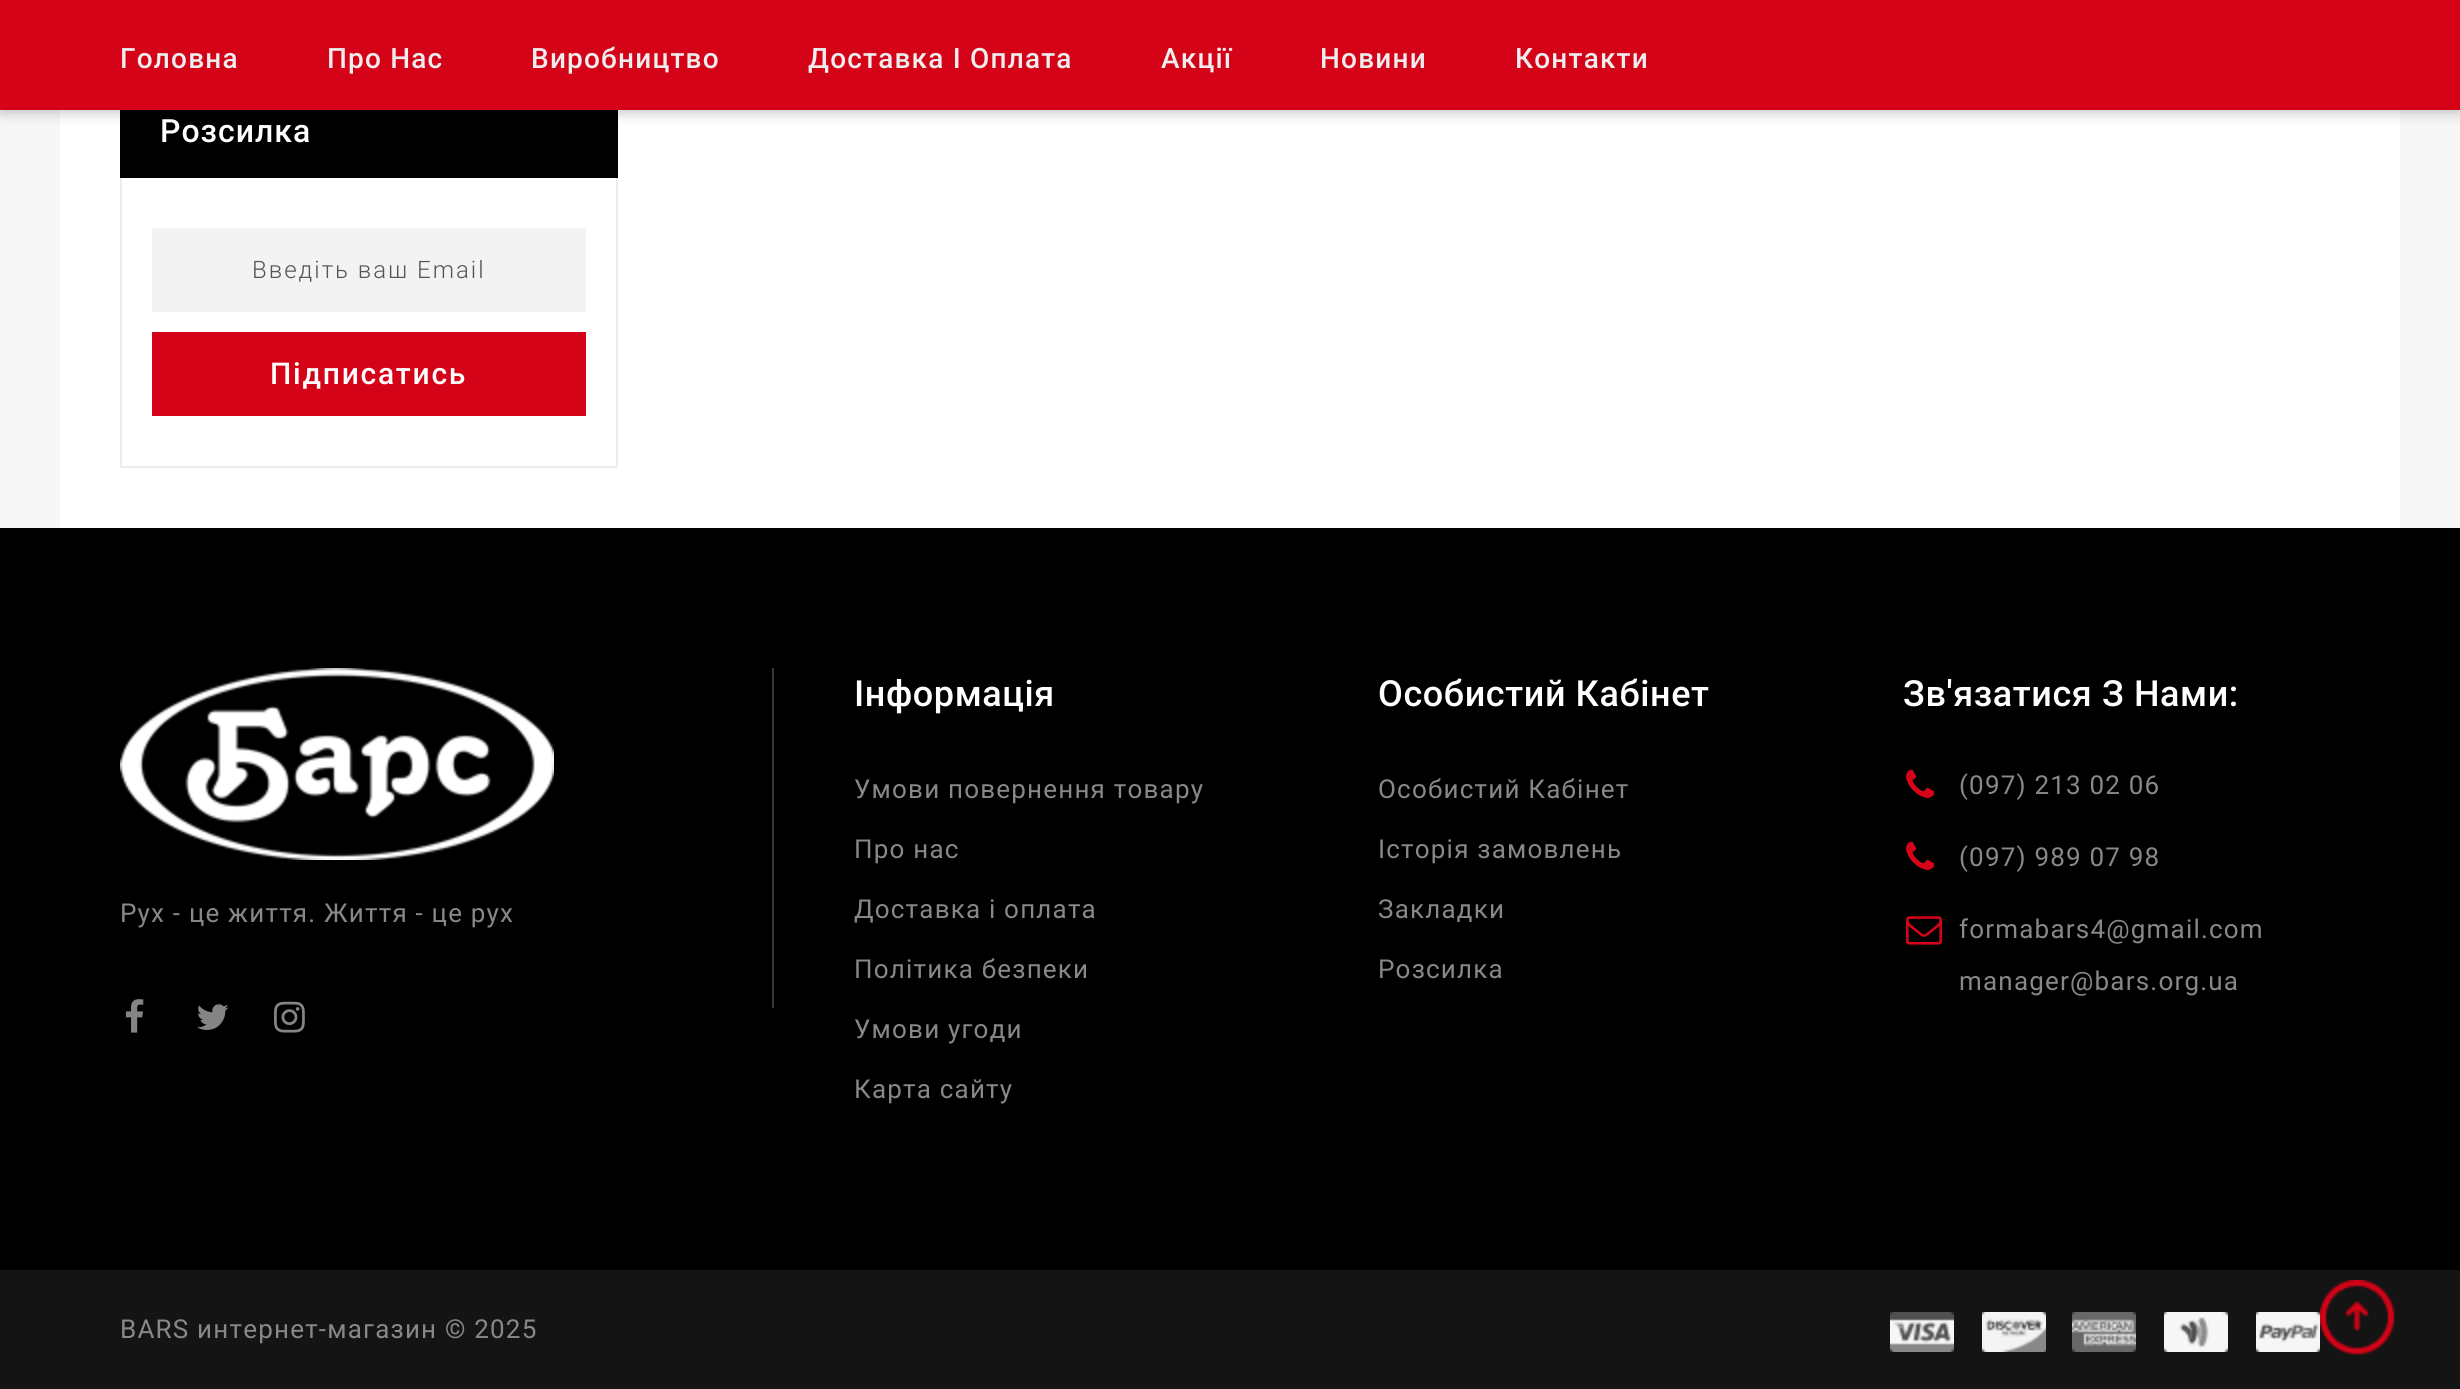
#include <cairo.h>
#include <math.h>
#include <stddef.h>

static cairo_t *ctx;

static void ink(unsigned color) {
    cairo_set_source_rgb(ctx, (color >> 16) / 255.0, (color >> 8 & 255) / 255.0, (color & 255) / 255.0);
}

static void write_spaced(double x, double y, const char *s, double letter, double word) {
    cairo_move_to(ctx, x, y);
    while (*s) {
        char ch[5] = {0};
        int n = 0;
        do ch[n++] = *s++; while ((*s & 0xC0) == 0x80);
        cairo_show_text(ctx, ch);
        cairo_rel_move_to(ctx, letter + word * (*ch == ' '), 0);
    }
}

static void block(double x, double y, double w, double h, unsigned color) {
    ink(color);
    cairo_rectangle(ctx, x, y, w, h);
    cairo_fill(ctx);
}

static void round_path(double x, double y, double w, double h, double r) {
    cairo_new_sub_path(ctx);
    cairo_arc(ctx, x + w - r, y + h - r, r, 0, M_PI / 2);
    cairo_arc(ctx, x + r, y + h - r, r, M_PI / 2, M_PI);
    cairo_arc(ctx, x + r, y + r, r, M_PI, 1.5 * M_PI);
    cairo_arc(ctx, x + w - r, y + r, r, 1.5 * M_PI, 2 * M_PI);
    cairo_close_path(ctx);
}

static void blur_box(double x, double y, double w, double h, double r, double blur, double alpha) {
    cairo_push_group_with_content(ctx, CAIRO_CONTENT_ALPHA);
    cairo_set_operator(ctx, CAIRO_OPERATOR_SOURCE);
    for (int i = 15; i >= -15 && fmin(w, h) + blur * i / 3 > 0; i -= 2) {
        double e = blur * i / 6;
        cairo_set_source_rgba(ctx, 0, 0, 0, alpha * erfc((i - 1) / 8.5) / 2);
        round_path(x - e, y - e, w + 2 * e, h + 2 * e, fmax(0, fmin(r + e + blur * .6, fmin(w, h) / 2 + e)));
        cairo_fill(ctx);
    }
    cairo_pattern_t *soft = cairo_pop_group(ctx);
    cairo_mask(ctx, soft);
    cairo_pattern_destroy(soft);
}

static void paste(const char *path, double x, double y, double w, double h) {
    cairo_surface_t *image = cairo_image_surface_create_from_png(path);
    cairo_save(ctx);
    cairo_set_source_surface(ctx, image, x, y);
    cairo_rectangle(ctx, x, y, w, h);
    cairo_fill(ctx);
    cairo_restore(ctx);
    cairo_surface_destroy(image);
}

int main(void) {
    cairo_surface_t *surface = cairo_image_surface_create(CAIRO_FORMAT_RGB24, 2460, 1389);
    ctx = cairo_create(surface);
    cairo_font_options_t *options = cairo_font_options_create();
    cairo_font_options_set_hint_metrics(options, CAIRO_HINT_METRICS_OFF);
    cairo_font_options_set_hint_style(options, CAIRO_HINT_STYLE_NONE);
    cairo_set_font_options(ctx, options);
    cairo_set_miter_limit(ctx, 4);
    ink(0xf7f7f7);
    cairo_paint(ctx);
    block(60, 110, 2340, 418, 0xffffff);
    block(120, 110, 498, 68, 0x000000);
    ink(0x000000);
    blur_box(0, 4, 2460, 110, 0, 6, 0.2);
    block(0, 0, 2460, 110, 0xd40317);
    cairo_select_font_face(ctx, "Roboto Medium", CAIRO_FONT_SLANT_NORMAL, CAIRO_FONT_WEIGHT_NORMAL);
    cairo_set_font_size(ctx, 28);
    ink(0xeeeeee);
    write_spaced(120, 68, "Головна", 1.2, 0);
    write_spaced(327, 68, "Про Нас", 1.2, 0);
    write_spaced(531, 68, "Виробництво", 1.2, 0);
    write_spaced(808, 68, "Доставка І Оплата", 1.2, 0);
    write_spaced(1161, 68, "Акції", 1.2, 0);
    write_spaced(1320, 68, "Новини", 1.2, 0);
    write_spaced(1515, 68, "Контакти", 1.2, 0);
    cairo_set_font_size(ctx, 32);
    ink(0xffffff);
    write_spaced(160, 142, "Розсилка", 1, 0);
    block(616, 178, 2, 290, 0xededed);
    block(120, 466, 498, 2, 0xededed);
    block(120, 178, 2, 290, 0xededed);
    block(152, 228, 434, 84, 0xf3f3f3);
    cairo_select_font_face(ctx, "Roboto Light", CAIRO_FONT_SLANT_NORMAL, CAIRO_FONT_WEIGHT_NORMAL);
    cairo_set_font_size(ctx, 24);
    ink(0x555555);
    write_spaced(252, 278, "Введіть ваш Email", 2, 0);
    block(152, 332, 434, 84, 0xd40317);
    cairo_select_font_face(ctx, "Roboto Medium", CAIRO_FONT_SLANT_NORMAL, CAIRO_FONT_WEIGHT_NORMAL);
    cairo_set_font_size(ctx, 30);
    ink(0xffffff);
    write_spaced(270, 384, "Підписатись", 1.75, 0);
    block(0, 528, 2460, 742, 0x000000);
    paste("pic1.png", 120, 668, 434, 192);
    cairo_select_font_face(ctx, "Roboto", CAIRO_FONT_SLANT_NORMAL, CAIRO_FONT_WEIGHT_NORMAL);
    cairo_set_font_size(ctx, 26);
    ink(0x888888);
    write_spaced(120, 922, "Рух - це життя. Життя - це рух", 1.2, 0);
    paste("pic2.png", 125, 999, 19, 34);
    paste("pic3.png", 197, 1004, 32, 26);
    paste("pic4.png", 274, 1001, 31, 32);
    block(772, 668, 2, 340, 0x373737);
    cairo_select_font_face(ctx, "Roboto Medium", CAIRO_FONT_SLANT_NORMAL, CAIRO_FONT_WEIGHT_NORMAL);
    cairo_set_font_size(ctx, 36);
    ink(0xffffff);
    write_spaced(854, 706, "Інформація", 0.6, 0);
    cairo_select_font_face(ctx, "Roboto", CAIRO_FONT_SLANT_NORMAL, CAIRO_FONT_WEIGHT_NORMAL);
    cairo_set_font_size(ctx, 26);
    ink(0x888888);
    write_spaced(854, 798, "Умови повернення товару", 1.2, 0);
    write_spaced(854, 858, "Про нас", 1.2, 0);
    write_spaced(854, 918, "Доставка і оплата", 1.2, 0);
    write_spaced(854, 978, "Політика безпеки", 1.2, 0);
    write_spaced(854, 1038, "Умови угоди", 1.2, 0);
    write_spaced(854, 1098, "Карта сайту", 1.2, 0);
    cairo_select_font_face(ctx, "Roboto Medium", CAIRO_FONT_SLANT_NORMAL, CAIRO_FONT_WEIGHT_NORMAL);
    cairo_set_font_size(ctx, 36);
    ink(0xffffff);
    write_spaced(1378, 706, "Особистий Кабінет", 0.6, 0);
    cairo_select_font_face(ctx, "Roboto", CAIRO_FONT_SLANT_NORMAL, CAIRO_FONT_WEIGHT_NORMAL);
    cairo_set_font_size(ctx, 26);
    ink(0x888888);
    write_spaced(1378, 798, "Особистий Кабінет", 1.2, 0);
    write_spaced(1378, 858, "Історія замовлень", 1.2, 0);
    write_spaced(1378, 918, "Закладки", 1.2, 0);
    write_spaced(1378, 978, "Розсилка", 1.2, 0);
    cairo_select_font_face(ctx, "Roboto Medium", CAIRO_FONT_SLANT_NORMAL, CAIRO_FONT_WEIGHT_NORMAL);
    cairo_set_font_size(ctx, 36);
    ink(0xffffff);
    write_spaced(1903, 706, "Зв'язатися З Нами:", 0.6, 0);
    paste("pic5.png", 1906, 769, 29, 29);
    cairo_select_font_face(ctx, "Roboto", CAIRO_FONT_SLANT_NORMAL, CAIRO_FONT_WEIGHT_NORMAL);
    cairo_set_font_size(ctx, 26);
    ink(0x888888);
    write_spaced(1959, 794, "(097) 213 02 06", 1.2, 0);
    paste("pic5.png", 1906, 841, 29, 29);
    write_spaced(1959, 866, "(097) 989 07 98", 1.2, 0);
    paste("pic6.png", 1906, 916, 36, 29);
    write_spaced(1959, 938, "formabars4@gmail.com", 1.2, 0);
    write_spaced(1959, 990, "manager@bars.org.ua", 1.2, 0);
    block(0, 1270, 2460, 119, 0x141414);
    ink(0x888888);
    write_spaced(120, 1338, "BARS интернет-магазин © 2025", 1.2, 0);
    paste("pic7.png", 1890, 1312, 64, 40);
    paste("pic8.png", 1982, 1312, 64, 40);
    paste("pic9.png", 2072, 1312, 64, 40);
    paste("pic10.png", 2164, 1312, 64, 40);
    paste("pic11.png", 2256, 1312, 64, 40);
    paste("pic12.png", 2320, 1280, 75, 75);
    cairo_surface_write_to_png(surface, "screenshot.png");
    cairo_font_options_destroy(options);
    cairo_destroy(ctx);
    cairo_surface_destroy(surface);
    return 0;
}
